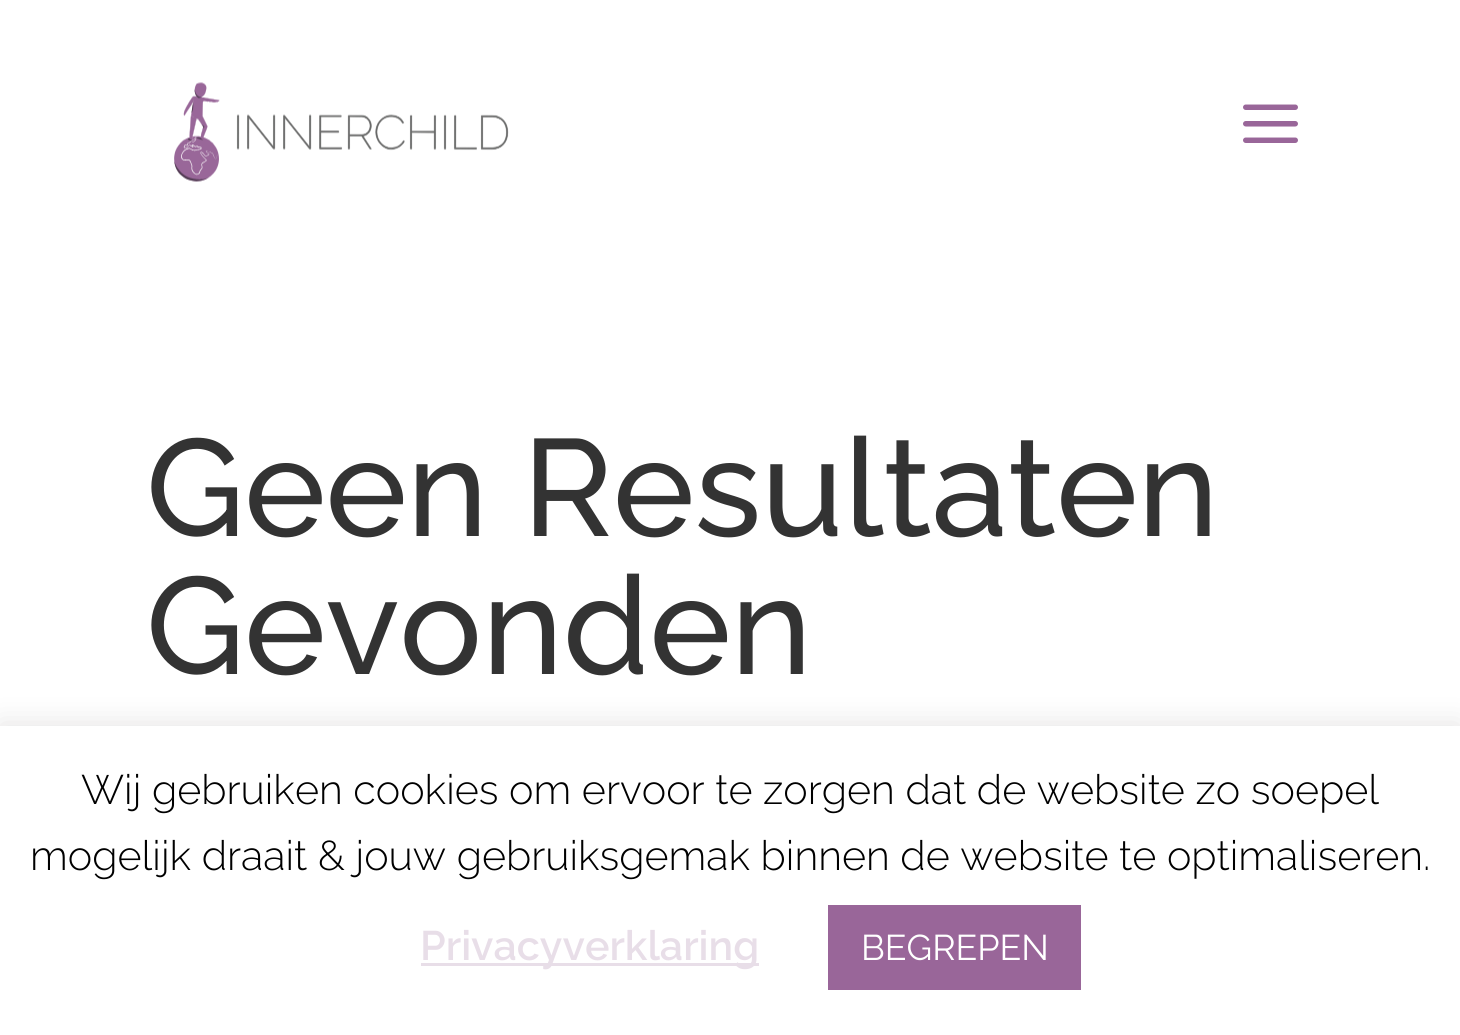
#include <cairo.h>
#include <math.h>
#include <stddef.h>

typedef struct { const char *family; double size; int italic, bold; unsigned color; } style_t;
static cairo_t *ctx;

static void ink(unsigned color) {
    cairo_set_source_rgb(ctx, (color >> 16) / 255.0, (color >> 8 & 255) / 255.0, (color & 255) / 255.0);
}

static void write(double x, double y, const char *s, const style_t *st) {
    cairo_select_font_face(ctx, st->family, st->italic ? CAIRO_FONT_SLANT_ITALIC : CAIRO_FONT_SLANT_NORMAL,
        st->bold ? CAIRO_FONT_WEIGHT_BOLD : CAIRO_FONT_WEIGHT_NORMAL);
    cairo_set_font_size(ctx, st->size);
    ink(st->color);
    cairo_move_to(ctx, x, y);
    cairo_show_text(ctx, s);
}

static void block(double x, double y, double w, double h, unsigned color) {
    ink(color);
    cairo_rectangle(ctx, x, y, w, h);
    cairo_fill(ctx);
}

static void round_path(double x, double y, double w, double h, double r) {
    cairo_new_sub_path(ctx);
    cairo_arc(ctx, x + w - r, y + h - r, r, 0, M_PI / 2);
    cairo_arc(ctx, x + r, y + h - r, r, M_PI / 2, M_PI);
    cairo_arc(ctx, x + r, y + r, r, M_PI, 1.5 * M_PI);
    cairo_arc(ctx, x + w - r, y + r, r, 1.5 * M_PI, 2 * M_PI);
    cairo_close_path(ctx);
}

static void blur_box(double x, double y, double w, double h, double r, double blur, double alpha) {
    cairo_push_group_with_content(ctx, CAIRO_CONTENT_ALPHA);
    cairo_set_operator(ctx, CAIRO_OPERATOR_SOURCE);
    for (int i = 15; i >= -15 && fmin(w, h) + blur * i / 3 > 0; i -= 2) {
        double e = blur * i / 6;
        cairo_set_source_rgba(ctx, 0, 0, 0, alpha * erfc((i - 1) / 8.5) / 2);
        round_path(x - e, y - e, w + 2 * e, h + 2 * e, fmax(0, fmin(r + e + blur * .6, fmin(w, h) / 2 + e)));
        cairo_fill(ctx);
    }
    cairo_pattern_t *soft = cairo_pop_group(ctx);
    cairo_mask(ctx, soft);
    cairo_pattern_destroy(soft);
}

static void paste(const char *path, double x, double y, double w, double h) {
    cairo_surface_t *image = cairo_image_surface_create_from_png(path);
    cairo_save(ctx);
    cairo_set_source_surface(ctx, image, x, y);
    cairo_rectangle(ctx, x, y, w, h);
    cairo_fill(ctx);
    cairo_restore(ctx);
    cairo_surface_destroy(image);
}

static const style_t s1 = {"Raleway Medium", 137.5, 0, 0, 0x333333};
static const style_t s2 = {"Raleway Light", 41.25, 0, 0, 0x000000};
static const style_t s3 = {"Raleway SemiBold", 41.25, 0, 0, 0xe8dee8};
static const style_t s4 = {"Raleway", 35.75, 0, 0, 0xffffff};

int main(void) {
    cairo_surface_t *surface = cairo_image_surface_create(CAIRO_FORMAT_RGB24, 1460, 1035);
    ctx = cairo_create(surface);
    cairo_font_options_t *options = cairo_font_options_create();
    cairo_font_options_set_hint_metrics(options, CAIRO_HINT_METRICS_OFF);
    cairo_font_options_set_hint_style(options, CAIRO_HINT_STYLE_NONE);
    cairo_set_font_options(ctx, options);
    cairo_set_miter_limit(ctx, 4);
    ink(0xffffff);
    cairo_paint(ctx);
    paste("pic1.png", 174, 82, 335, 100);
    paste("pic2.png", 1243, 104, 55, 39);
    write(146, 536, "Geen Resultaten", &s1);
    write(146, 674, "Gevonden", &s1);
    ink(0xacabab);
    blur_box(0, 723, 1460, 311, 0, 14, 0.3);
    block(0, 726, 1460, 309, 0xffffff);
    write(81, 804, "Wij gebruiken cookies om ervoor te zorgen dat de website zo soepel", &s2);
    write(30, 870, "mogelijk draait & jouw gebruiksgemak binnen de website te optimaliseren.", &s2);
    block(421, 963, 338, 3, 0xe8dee8);
    write(420, 960, "Privacyverklaring", &s3);
    block(828, 905, 253, 85, 0x996699);
    write(861, 960, "BEGREPEN", &s4);
    cairo_surface_write_to_png(surface, "screenshot.png");
    cairo_font_options_destroy(options);
    cairo_destroy(ctx);
    cairo_surface_destroy(surface);
    return 0;
}
